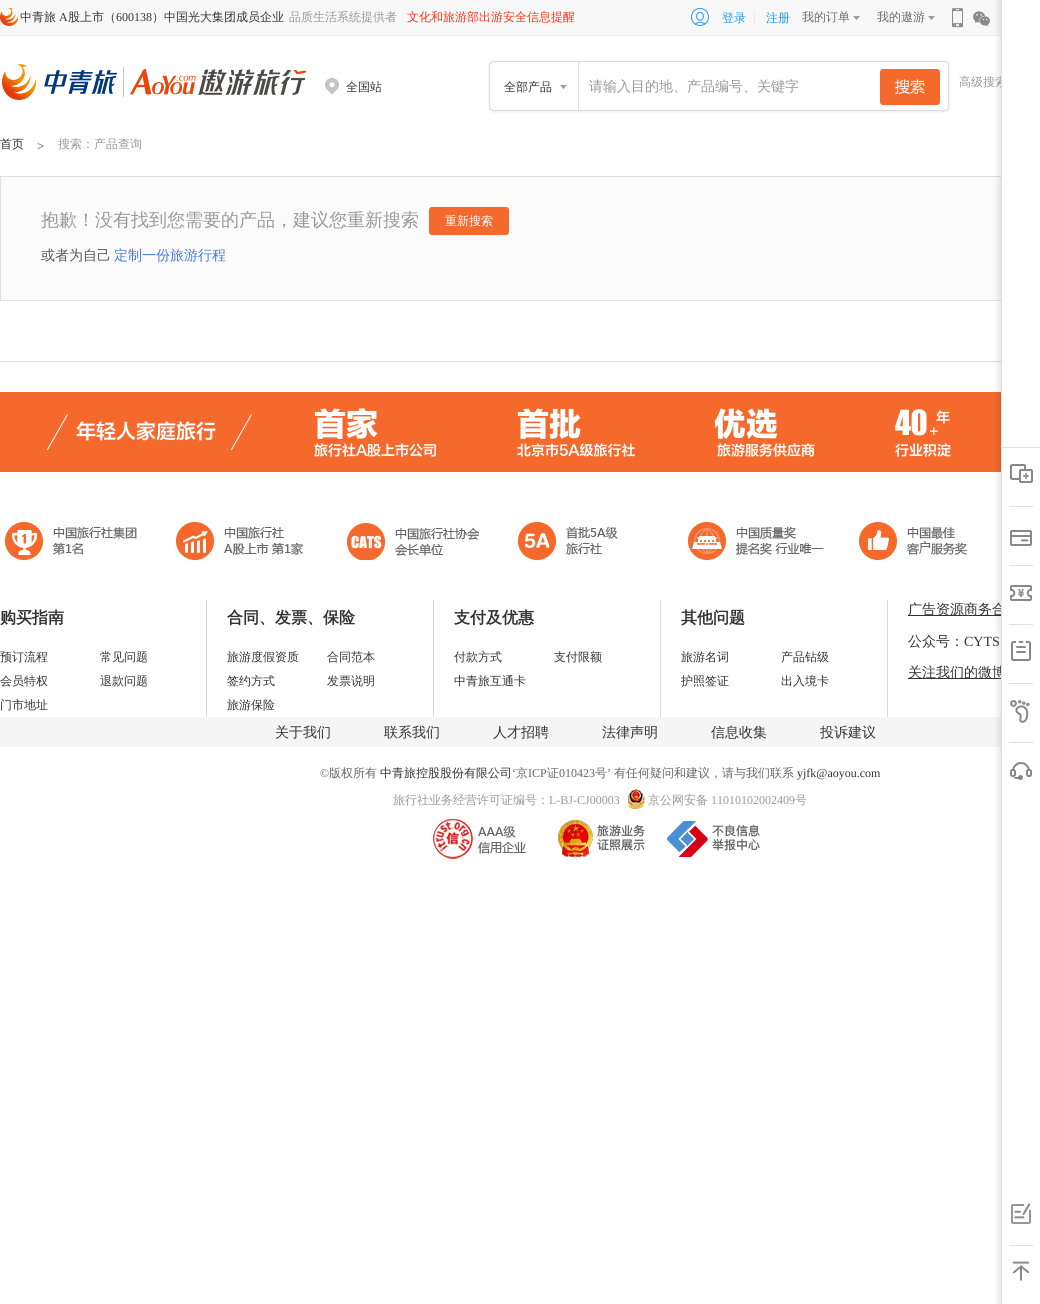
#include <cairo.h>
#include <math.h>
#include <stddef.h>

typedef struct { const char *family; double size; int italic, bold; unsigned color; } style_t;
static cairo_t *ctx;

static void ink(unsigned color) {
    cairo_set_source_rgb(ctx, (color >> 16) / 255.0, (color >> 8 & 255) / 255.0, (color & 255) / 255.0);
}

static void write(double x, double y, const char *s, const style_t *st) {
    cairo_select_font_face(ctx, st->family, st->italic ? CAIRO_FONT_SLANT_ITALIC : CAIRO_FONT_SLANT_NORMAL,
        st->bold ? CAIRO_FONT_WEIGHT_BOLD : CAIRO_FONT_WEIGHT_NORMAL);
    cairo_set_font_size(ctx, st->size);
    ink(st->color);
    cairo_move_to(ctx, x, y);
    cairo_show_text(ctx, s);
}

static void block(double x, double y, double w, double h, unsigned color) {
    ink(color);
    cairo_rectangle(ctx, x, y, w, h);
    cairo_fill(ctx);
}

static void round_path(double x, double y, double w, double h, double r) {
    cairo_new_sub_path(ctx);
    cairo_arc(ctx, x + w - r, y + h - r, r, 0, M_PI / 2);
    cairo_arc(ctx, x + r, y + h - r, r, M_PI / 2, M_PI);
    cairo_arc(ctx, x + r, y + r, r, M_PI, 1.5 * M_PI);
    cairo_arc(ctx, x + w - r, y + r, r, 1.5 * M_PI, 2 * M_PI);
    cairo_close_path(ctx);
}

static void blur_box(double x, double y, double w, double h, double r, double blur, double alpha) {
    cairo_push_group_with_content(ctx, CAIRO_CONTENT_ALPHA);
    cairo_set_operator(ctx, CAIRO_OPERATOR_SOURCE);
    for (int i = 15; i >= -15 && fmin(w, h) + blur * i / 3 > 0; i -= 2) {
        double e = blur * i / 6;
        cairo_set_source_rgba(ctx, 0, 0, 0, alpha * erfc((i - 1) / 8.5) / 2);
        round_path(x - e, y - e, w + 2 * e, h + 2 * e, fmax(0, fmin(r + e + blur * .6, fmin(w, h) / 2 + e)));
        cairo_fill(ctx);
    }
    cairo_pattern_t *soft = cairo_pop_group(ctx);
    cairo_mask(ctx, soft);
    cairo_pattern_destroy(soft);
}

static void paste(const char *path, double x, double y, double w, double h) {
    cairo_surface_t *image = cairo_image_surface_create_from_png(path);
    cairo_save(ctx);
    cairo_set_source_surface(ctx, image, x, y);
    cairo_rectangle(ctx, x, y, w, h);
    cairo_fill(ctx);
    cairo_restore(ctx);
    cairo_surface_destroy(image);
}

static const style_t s1 = {"WenQuanYi Zen Hei Medium", 12, 0, 0, 0x333333};
static const style_t s2 = {"Liberation Serif", 12, 0, 0, 0x333333};
static const style_t s3 = {"WenQuanYi Zen Hei Medium", 12, 0, 0, 0x999999};
static const style_t s4 = {"WenQuanYi Zen Hei Medium", 12, 0, 0, 0xf83615};
static const style_t s5 = {"WenQuanYi Zen Hei Medium", 12, 0, 0, 0x1f99f4};
static const style_t s6 = {"Liberation Serif", 12, 0, 0, 0xdbdbdb};
static const style_t s7 = {"WenQuanYi Zen Hei Medium", 12, 0, 0, 0x6c6c6c};
static const style_t s8 = {"WenQuanYi Zen Hei Medium", 14, 0, 0, 0x333333};
static const style_t s9 = {"WenQuanYi Zen Hei Medium", 14, 0, 0, 0x999999};
static const style_t s10 = {"Liberation Sans", 12, 0, 0, 0x7f7f7f};
static const style_t s11 = {"WenQuanYi Zen Hei Medium", 18, 0, 0, 0x999999};
static const style_t s12 = {"WenQuanYi Zen Hei Medium", 12, 0, 0, 0xffffff};
static const style_t s13 = {"WenQuanYi Zen Hei Medium", 14, 0, 0, 0x555555};
static const style_t s14 = {"WenQuanYi Zen Hei Medium", 14, 0, 0, 0x4479e5};
static const style_t s15 = {"WenQuanYi Zen Hei", 16, 0, 1, 0x333333};
static const style_t s16 = {"Liberation Serif", 14, 0, 0, 0x333333};
static const style_t s17 = {"Liberation Serif", 12, 0, 0, 0x666666};
static const style_t s18 = {"WenQuanYi Zen Hei Medium", 12, 0, 0, 0x666666};
static const style_t s19 = {"Liberation Serif", 12, 0, 0, 0x999999};

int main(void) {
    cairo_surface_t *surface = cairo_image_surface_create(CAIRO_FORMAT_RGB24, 1040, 1304);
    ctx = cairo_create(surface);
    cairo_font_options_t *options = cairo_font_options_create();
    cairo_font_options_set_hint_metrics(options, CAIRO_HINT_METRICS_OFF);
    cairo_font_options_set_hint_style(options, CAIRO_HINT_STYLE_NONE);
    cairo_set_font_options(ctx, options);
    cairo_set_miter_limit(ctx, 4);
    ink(0xffffff);
    cairo_paint(ctx);
    block(0, 0, 1001, 35, 0xf8f8f8);
    block(0, 35, 1001, 1, 0xeeeeee);
    paste("pic1.png", 0, 8, 18, 18);
    write(20, 21, "中青旅", &s1);
    write(59, 21, "A", &s2);
    write(68, 21, "股上市（", &s1);
    write(116, 21, "600138", &s2);
    write(152, 21, "）中国光大集团成员企业", &s1);
    write(289, 21, "品质生活系统提供者", &s3);
    write(407, 21, "文化和旅游部出游安全信息提醒", &s4);
    paste("pic2.png", 691, 8, 18, 18);
    write(722, 22, "登录", &s5);
    write(753, 21, "|", &s6);
    write(766, 22, "注册", &s5);
    write(802, 21, "我的订单", &s7);
    paste("pic3.png", 853, 16, 7, 4);
    write(877, 21, "我的遨游", &s7);
    paste("pic3.png", 928, 16, 7, 4);
    paste("pic4.png", 952, 8, 11, 20);
    paste("pic5.png", 973, 11, 17, 16);
    block(1, 177, 1000, 123, 0xfbfbfb);
    cairo_rectangle(ctx, 0.5, 176.5, 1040, 124);
    ink(0xe1e1e1);
    cairo_set_line_width(ctx, 1);
    cairo_stroke(ctx);
    block(0, 361, 1001, 1, 0xdce0e0);
    paste("pic18.png", 0, 392, 1001, 80);
    block(908, 615, 93, 1, 0x333333);
    block(908, 678, 98, 1, 0x333333);
    block(0, 717, 1001, 30, 0xf5f5f5);
    ink(0x000000);
    blur_box(998, 0, 39, 1304, 0, 3, 0.1);
    write(959, 86, "高级搜索", &s3);
    write(908, 614, "广告资源商务合", &s8);
    write(908, 677, "关注我们的微博", &s8);
    block(1002, 0, 38, 1304, 0xffffff);
    block(1001, 0, 1, 1304, 0xdce0e0);
    block(1002, 447, 38, 1, 0xdce0e0);
    block(1009, 506, 24, 1, 0xdce0e0);
    paste("pic6.png", 1010, 464, 23, 19);
    block(1009, 565, 24, 1, 0xdce0e0);
    paste("pic7.png", 1010, 530, 22, 16);
    block(1009, 624, 24, 1, 0xdce0e0);
    paste("pic8.png", 1010, 585, 22, 16);
    block(1009, 683, 24, 1, 0xdce0e0);
    paste("pic9.png", 1011, 641, 20, 20);
    block(1009, 742, 24, 1, 0xdce0e0);
    paste("pic10.png", 1010, 700, 20, 23);
    paste("pic11.png", 1010, 762, 22, 18);
    block(1009, 1245, 24, 1, 0xdce0e0);
    paste("pic12.png", 1011, 1203, 20, 21);
    paste("pic13.png", 1012, 1261, 18, 20);
    paste("pic14.png", 2, 64, 305, 36);
    paste("pic15.png", 325, 78, 14, 16);
    write(346, 91, "全国站", &s1);
    ink(0x000000);
    blur_box(489, 62, 460, 50, 4, 1.5, 0.08);
    round_path(489.5, 61.5, 459, 49, 3.5);
    ink(0xdbdbdb);
    cairo_stroke(ctx);
    ink(0xffffff);
    cairo_new_path(ctx);
    cairo_move_to(ctx, 494, 62);
    cairo_line_to(ctx, 579, 62);
    cairo_line_to(ctx, 579, 110);
    cairo_line_to(ctx, 494, 110);
    cairo_curve_to(ctx, 492, 110, 490, 108, 490, 106);
    cairo_line_to(ctx, 490, 66);
    cairo_curve_to(ctx, 490, 64, 492, 62, 494, 62);
    cairo_close_path(ctx);
    cairo_fill(ctx);
    block(578, 62, 1, 48, 0xdce0e0);
    write(504, 91, "全部产品", &s1);
    paste("pic16.png", 560, 85, 7, 4);
    ink(0xffffff);
    cairo_new_path(ctx);
    cairo_move_to(ctx, 579, 62);
    cairo_line_to(ctx, 944, 62);
    cairo_curve_to(ctx, 946, 62, 948, 64, 948, 66);
    cairo_line_to(ctx, 948, 106);
    cairo_curve_to(ctx, 948, 108, 946, 110, 944, 110);
    cairo_line_to(ctx, 579, 110);
    cairo_close_path(ctx);
    cairo_fill(ctx);
    write(589, 91, "请输入目的地、产品编号、关键字", &s9);
    paste("pic17.png", 880, 69, 60, 36);
    write(0, 148, "首页", &s1);
    write(37, 150, ">", &s10);
    write(58, 148, "搜索：产品查询", &s3);
    write(41, 226, "抱歉！没有找到您需要的产品，建议您重新搜索", &s11);
    ink(0xf5692c);
    round_path(429, 207, 80, 28, 3);
    cairo_fill(ctx);
    write(445, 225, "重新搜索", &s12);
    write(41, 260, "或者为自己", &s13);
    write(114, 260, "定制一份旅游行程", &s14);
    paste("pic19.png", 5, 522, 132, 38);
    paste("pic20.png", 176, 522, 127, 38);
    paste("pic21.png", 347, 523, 132, 37);
    paste("pic22.png", 518, 522, 100, 38);
    paste("pic23.png", 688, 522, 136, 38);
    paste("pic24.png", 859, 522, 108, 38);
    block(206, 600, 1, 117, 0xd8d8d8);
    write(0, 623, "购买指南", &s15);
    write(0, 661, "预订流程", &s1);
    write(100, 661, "常见问题", &s1);
    write(0, 685, "会员特权", &s1);
    write(100, 685, "退款问题", &s1);
    write(0, 709, "门市地址", &s1);
    block(433, 600, 1, 117, 0xd8d8d8);
    write(227, 623, "合同、发票、保险", &s15);
    write(227, 661, "旅游度假资质", &s1);
    write(327, 661, "合同范本", &s1);
    write(227, 685, "签约方式", &s1);
    write(327, 685, "发票说明", &s1);
    write(227, 709, "旅游保险", &s1);
    block(660, 600, 1, 117, 0xd8d8d8);
    write(454, 623, "支付及优惠", &s15);
    write(454, 661, "付款方式", &s1);
    write(554, 661, "支付限额", &s1);
    write(454, 685, "中青旅互通卡", &s1);
    block(887, 600, 1, 117, 0xd8d8d8);
    write(681, 623, "其他问题", &s15);
    write(681, 661, "旅游名词", &s1);
    write(781, 661, "产品钻级", &s1);
    write(681, 685, "护照签证", &s1);
    write(781, 685, "出入境卡", &s1);
    write(908, 646, "公众号：", &s8);
    write(964, 646, "CYTS", &s16);
    write(275, 737, "关于我们", &s8);
    write(384, 737, "联系我们", &s8);
    write(493, 737, "人才招聘", &s8);
    write(602, 737, "法律声明", &s8);
    write(711, 737, "信息收集", &s8);
    write(820, 737, "投诉建议", &s8);
    write(320, 777, "©", &s17);
    write(329, 777, "版权所有", &s18);
    write(380, 777, "中青旅控股股份有限公司", &s1);
    write(512, 777, "‘", &s17);
    write(516, 777, "京", &s18);
    write(528, 777, "ICP", &s17);
    write(547, 777, "证", &s18);
    write(559, 777, "010423", &s17);
    write(595, 777, "号", &s18);
    write(607, 777, "’", &s17);
    write(614, 777, "有任何疑问和建议，请与我们联系", &s18);
    write(797, 777, "yjfk@aoyou.com", &s2);
    write(393, 804, "旅行社业务经营许可证编号：", &s3);
    write(549, 804, "L-BJ-CJ00003", &s19);
    paste("pic25.png", 628, 789, 17, 20);
    write(648, 804, "京公网安备", &s3);
    write(711, 804, "11010102002409", &s19);
    write(795, 804, "号", &s3);
    paste("pic26.png", 433, 819, 93, 40);
    paste("pic27.png", 558, 820, 87, 37);
    paste("pic28.png", 667, 821, 93, 36);
    cairo_surface_write_to_png(surface, "screenshot.png");
    cairo_font_options_destroy(options);
    cairo_destroy(ctx);
    cairo_surface_destroy(surface);
    return 0;
}
